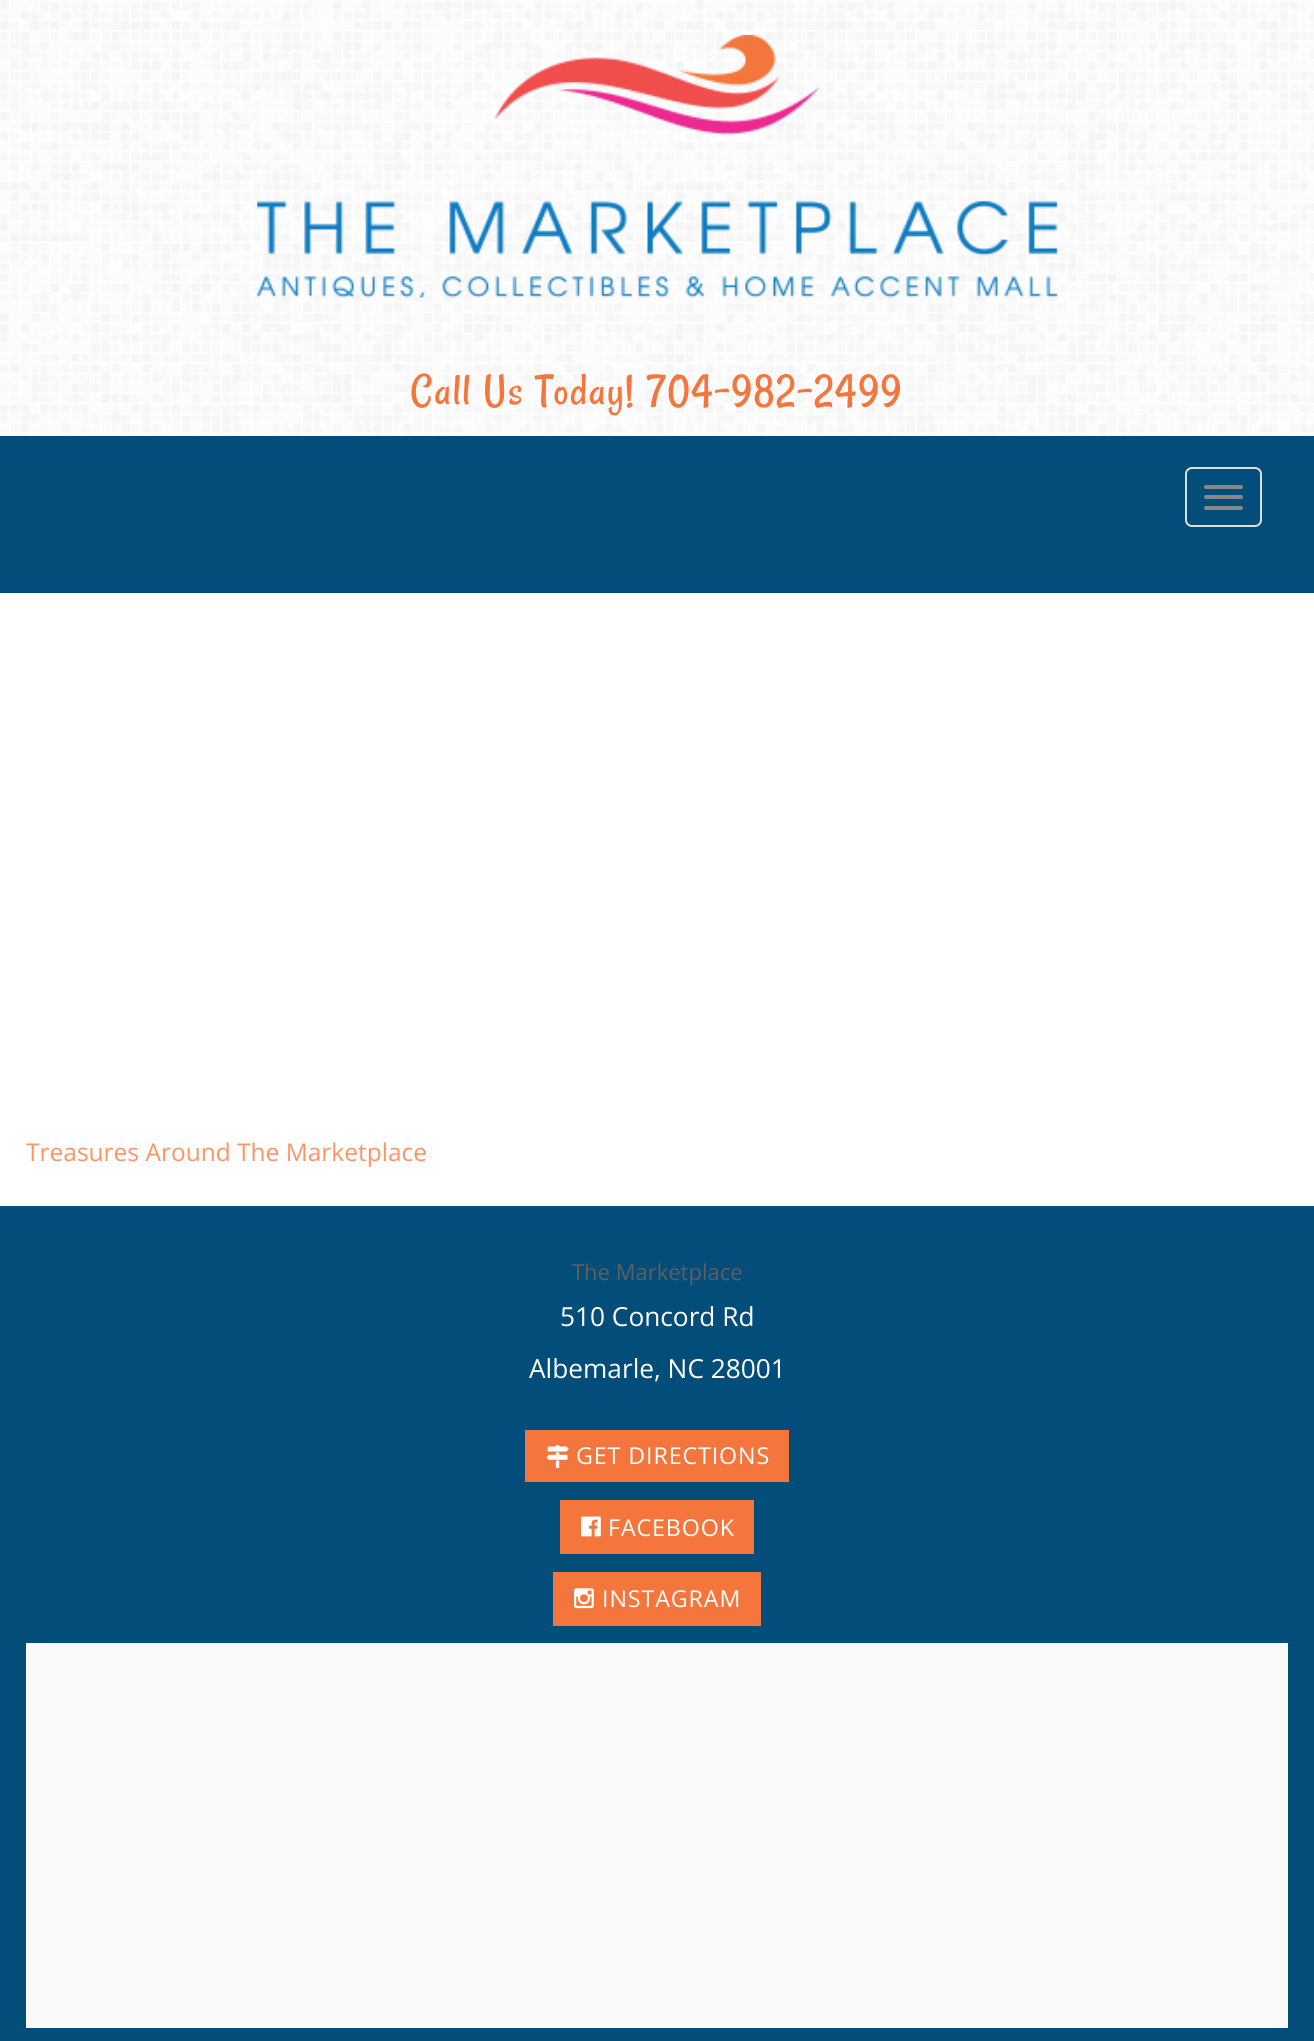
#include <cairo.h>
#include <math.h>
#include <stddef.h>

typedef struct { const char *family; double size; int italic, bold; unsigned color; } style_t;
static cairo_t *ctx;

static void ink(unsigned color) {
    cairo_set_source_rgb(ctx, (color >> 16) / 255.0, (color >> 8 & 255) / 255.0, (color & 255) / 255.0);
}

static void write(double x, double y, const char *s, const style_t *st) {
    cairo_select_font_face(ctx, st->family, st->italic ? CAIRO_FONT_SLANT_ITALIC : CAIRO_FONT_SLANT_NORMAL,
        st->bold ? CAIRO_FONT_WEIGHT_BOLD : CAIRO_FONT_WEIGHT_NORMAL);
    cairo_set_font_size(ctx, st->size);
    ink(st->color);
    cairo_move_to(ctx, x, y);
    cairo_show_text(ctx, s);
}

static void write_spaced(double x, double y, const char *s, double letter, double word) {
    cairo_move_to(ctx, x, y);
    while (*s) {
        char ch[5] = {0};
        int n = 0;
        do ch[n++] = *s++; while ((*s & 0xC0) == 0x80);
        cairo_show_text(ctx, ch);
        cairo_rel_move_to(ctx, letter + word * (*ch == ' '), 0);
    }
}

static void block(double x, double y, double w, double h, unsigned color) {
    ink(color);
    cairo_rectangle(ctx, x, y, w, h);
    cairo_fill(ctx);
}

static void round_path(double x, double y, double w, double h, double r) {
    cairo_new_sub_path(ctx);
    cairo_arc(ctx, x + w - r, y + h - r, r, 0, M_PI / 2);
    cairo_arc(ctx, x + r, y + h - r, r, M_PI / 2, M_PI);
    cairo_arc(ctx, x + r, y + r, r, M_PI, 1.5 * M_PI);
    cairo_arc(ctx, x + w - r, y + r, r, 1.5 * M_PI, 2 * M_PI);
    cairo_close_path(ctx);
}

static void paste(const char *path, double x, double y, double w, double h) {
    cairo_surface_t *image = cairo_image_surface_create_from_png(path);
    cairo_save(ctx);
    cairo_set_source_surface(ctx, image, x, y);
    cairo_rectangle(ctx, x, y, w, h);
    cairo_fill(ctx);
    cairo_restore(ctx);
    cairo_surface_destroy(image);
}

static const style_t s1 = {"Open Sans", 24.5, 0, 0, 0xff9362};
static const style_t s2 = {"Open Sans", 22, 0, 0, 0x605e5e};
static const style_t s3 = {"Open Sans", 26.25, 0, 0, 0xffffff};

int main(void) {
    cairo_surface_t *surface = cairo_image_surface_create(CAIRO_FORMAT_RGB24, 1314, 2041);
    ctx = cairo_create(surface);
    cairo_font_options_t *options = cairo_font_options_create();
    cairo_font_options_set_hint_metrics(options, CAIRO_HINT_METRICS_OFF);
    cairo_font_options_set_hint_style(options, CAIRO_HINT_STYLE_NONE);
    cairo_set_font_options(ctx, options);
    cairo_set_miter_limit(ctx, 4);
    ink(0xffffff);
    cairo_paint(ctx);
    paste("pic1.png", 0, 0, 1314, 436);
    paste("pic2.png", 257, 35, 801, 263);
    cairo_select_font_face(ctx, "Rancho", CAIRO_FONT_SLANT_NORMAL, CAIRO_FONT_WEIGHT_NORMAL);
    cairo_set_font_size(ctx, 45.5);
    ink(0xf4763c);
    write_spaced(411, 404, "Call Us Today! 704-982-2499", 1.75, 0);
    block(0, 436, 1314, 157, 0x034d7a);
    round_path(1186, 468, 75, 58, 6);
    ink(0xdddddd);
    cairo_stroke(ctx);
    ink(0x888888);
    round_path(1204, 485, 39, 4, 2);
    cairo_fill(ctx);
    round_path(1204, 495, 39, 4, 2);
    cairo_fill(ctx);
    round_path(1204, 506, 39, 4, 2);
    cairo_fill(ctx);
    write(26, 1161, "Treasures Around The Marketplace", &s1);
    block(0, 1206, 1314, 835, 0x034d7a);
    write(572, 1280, "The Marketplace", &s2);
    write(560, 1326, "510 Concord Rd", &s3);
    write(529, 1378, "Albemarle, NC 28001", &s3);
    block(525, 1430, 264, 52, 0xf4763c);
    paste("pic3.png", 546, 1444, 23, 25);
    cairo_set_font_size(ctx, 23.25);
    ink(0xffffff);
    write_spaced(576, 1464, "GET DIRECTIONS", 0.9, 0);
    block(560, 1500, 194, 54, 0xf4763c);
    paste("pic4.png", 581, 1516, 20, 21);
    ink(0xffffff);
    write_spaced(608, 1536, "FACEBOOK", 0.9, 0);
    block(553, 1572, 208, 54, 0xf4763c);
    paste("pic5.png", 574, 1588, 20, 21);
    ink(0xffffff);
    write_spaced(602, 1607, "INSTAGRAM", 0.9, 0);
    block(26, 1643, 1262, 385, 0xfafafa);
    cairo_surface_write_to_png(surface, "screenshot.png");
    cairo_font_options_destroy(options);
    cairo_destroy(ctx);
    cairo_surface_destroy(surface);
    return 0;
}
